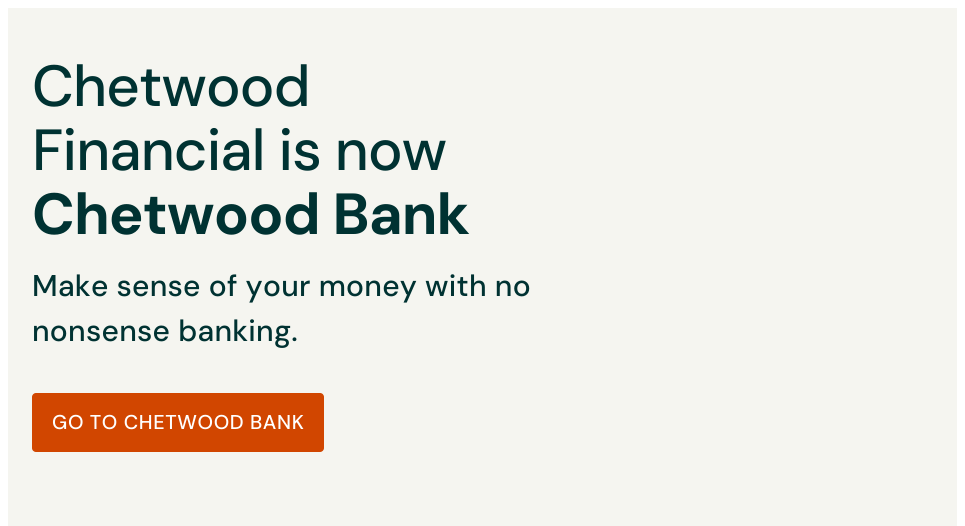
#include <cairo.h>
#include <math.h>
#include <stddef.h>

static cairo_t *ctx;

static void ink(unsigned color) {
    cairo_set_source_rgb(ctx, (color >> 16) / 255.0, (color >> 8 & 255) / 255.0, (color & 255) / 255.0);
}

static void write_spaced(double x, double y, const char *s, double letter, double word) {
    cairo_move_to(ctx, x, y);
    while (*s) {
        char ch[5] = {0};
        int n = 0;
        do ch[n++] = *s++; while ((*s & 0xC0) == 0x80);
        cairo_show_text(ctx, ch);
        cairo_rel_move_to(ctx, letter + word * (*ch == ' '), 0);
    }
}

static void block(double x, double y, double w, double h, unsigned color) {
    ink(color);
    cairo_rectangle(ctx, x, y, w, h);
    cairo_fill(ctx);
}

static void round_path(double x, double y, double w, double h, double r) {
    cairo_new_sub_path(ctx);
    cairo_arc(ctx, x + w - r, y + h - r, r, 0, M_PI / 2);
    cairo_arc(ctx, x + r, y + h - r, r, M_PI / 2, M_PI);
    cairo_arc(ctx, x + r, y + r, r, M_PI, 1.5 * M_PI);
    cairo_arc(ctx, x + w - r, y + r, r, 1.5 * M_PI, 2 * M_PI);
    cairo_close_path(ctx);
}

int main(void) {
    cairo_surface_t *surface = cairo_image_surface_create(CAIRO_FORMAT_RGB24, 965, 526);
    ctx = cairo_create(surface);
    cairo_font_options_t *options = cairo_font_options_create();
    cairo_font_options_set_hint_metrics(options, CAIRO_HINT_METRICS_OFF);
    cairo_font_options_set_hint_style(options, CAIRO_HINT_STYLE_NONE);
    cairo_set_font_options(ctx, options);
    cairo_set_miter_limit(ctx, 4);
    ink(0xffffff);
    cairo_paint(ctx);
    block(8, 8, 949, 518, 0xf5f5f0);
    cairo_select_font_face(ctx, "DM Sans Medium", CAIRO_FONT_SLANT_NORMAL, CAIRO_FONT_WEIGHT_NORMAL);
    cairo_set_font_size(ctx, 58);
    ink(0x003232);
    write_spaced(32, 106, "Chetwood", -0.9, 0);
    write_spaced(32, 170, "Financial is now", -0.9, 0);
    cairo_select_font_face(ctx, "DM Sans", CAIRO_FONT_SLANT_NORMAL, CAIRO_FONT_WEIGHT_BOLD);
    write_spaced(32, 234, "Chetwood Bank", -0.9, 0);
    cairo_select_font_face(ctx, "DM Sans Medium", CAIRO_FONT_SLANT_NORMAL, CAIRO_FONT_WEIGHT_NORMAL);
    cairo_set_font_size(ctx, 30);
    write_spaced(32, 296, "Make sense of your money with no", 0.25, 0);
    write_spaced(32, 341, "nonsense banking.", 0.25, 0);
    ink(0xd14600);
    round_path(32, 393, 292, 59, 4);
    cairo_fill(ctx);
    cairo_set_font_size(ctx, 20);
    ink(0xffffff);
    write_spaced(52, 429, "GO TO CHETWOOD BANK", 0.6, 0);
    cairo_surface_write_to_png(surface, "screenshot.png");
    cairo_font_options_destroy(options);
    cairo_destroy(ctx);
    cairo_surface_destroy(surface);
    return 0;
}
